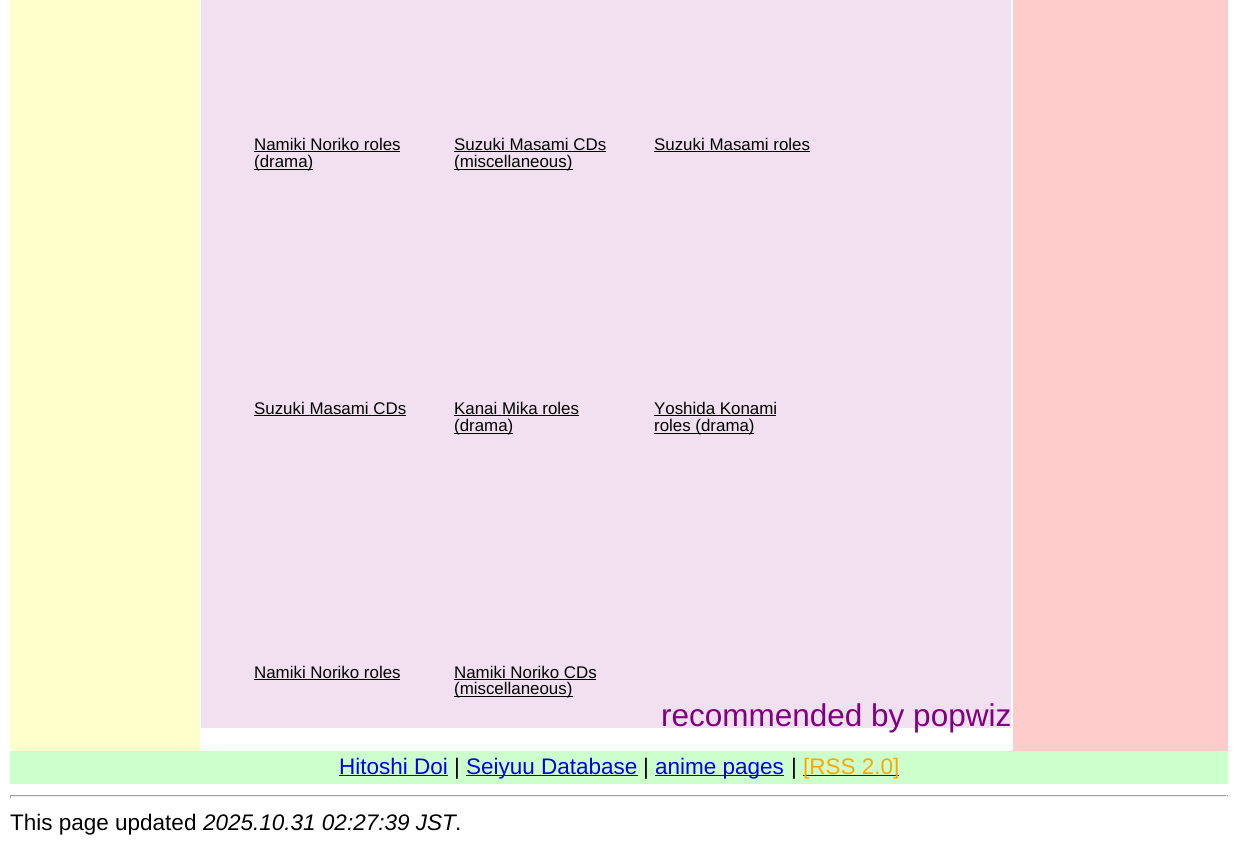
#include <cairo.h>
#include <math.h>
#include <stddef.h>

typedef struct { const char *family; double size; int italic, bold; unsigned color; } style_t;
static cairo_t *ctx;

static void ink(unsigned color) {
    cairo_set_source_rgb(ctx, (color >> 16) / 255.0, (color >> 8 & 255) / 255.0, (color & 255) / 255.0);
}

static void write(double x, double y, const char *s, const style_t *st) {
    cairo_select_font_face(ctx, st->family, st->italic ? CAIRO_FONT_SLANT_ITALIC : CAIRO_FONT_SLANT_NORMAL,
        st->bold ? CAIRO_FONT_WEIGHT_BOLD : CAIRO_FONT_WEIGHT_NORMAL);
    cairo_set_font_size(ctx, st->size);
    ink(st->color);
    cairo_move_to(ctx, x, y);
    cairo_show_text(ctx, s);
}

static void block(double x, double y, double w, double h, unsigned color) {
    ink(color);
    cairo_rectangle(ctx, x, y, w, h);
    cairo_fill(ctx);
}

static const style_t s1 = {"Liberation Sans", 16.9, 0, 0, 0x000000};
static const style_t s2 = {"Liberation Sans", 31.5, 0, 0, 0x800080};
static const style_t s3 = {"Liberation Sans", 22.5, 0, 0, 0x0000ee};
static const style_t s4 = {"Liberation Sans", 22.5, 0, 0, 0x000000};
static const style_t s5 = {"Liberation Sans", 22.5, 0, 0, 0xffa500};
static const style_t s6 = {"Liberation Sans", 22.5, 1, 0, 0x000000};

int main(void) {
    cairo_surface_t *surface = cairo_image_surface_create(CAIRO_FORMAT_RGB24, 1237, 848);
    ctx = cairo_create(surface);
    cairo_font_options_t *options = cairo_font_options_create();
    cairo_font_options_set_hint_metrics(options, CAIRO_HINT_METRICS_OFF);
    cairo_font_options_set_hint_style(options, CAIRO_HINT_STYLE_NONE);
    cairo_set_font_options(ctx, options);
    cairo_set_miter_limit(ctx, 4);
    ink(0xffffff);
    cairo_paint(ctx);
    block(10, 0, 190, 751, 0xffffcc);
    block(201, 0, 810, 728, 0xf0e0f0);
    write(254, 150, "Namiki Noriko roles", &s1);
    block(254, 151, 146, 1, 0x000000);
    block(254, 169, 59, 1, 0x000000);
    write(254, 167, "(drama)", &s1);
    write(454, 150, "Suzuki Masami CDs", &s1);
    block(454, 151, 152, 1, 0x000000);
    block(454, 169, 119, 1, 0x000000);
    write(454, 167, "(miscellaneous)", &s1);
    write(654, 150, "Suzuki Masami roles", &s1);
    block(654, 151, 156, 1, 0x000000);
    write(254, 414, "Suzuki Masami CDs", &s1);
    block(254, 415, 152, 1, 0x000000);
    write(454, 414, "Kanai Mika roles", &s1);
    block(454, 415, 125, 1, 0x000000);
    block(454, 433, 59, 1, 0x000000);
    write(454, 431, "(drama)", &s1);
    write(654, 414, "Yoshida Konami", &s1);
    block(654, 415, 122, 1, 0x000000);
    block(654, 433, 100, 1, 0x000000);
    write(654, 431, "roles (drama)", &s1);
    write(254, 678, "Namiki Noriko roles", &s1);
    block(254, 679, 146, 1, 0x000000);
    write(454, 678, "Namiki Noriko CDs", &s1);
    block(454, 679, 142, 1, 0x000000);
    block(454, 696, 119, 1, 0x000000);
    write(454, 694, "(miscellaneous)", &s1);
    write(661, 726, "recommended by popwiz", &s2);
    block(1013, 0, 215, 751, 0xffcccc);
    block(10, 751, 1218, 33, 0xccffcc);
    write(339, 774, "Hitoshi Doi", &s3);
    block(339, 775, 109, 1, 0x0000ee);
    write(454, 774, "|", &s4);
    block(466, 775, 172, 1, 0x0000ee);
    write(466, 774, "Seiyuu Database", &s3);
    write(643, 774, "|", &s4);
    block(655, 775, 129, 1, 0x0000ee);
    write(655, 774, "anime pages", &s3);
    write(791, 774, "|", &s4);
    block(803, 775, 96, 1, 0x0000ee);
    write(803, 774, "[RSS 2.0]", &s5);
    block(10, 795, 1218, 1, 0x9f9f9f);
    block(1226, 795, 1, 3, 0xeeeeee);
    block(10, 796, 1218, 1, 0xeeeeee);
    block(10, 795, 1, 3, 0x9f9f9f);
    write(10, 830, "This page updated", &s4);
    write(203, 830, "2025.10.31 02:27:39 JST", &s6);
    write(455, 830, ".", &s4);
    cairo_surface_write_to_png(surface, "screenshot.png");
    cairo_font_options_destroy(options);
    cairo_destroy(ctx);
    cairo_surface_destroy(surface);
    return 0;
}
